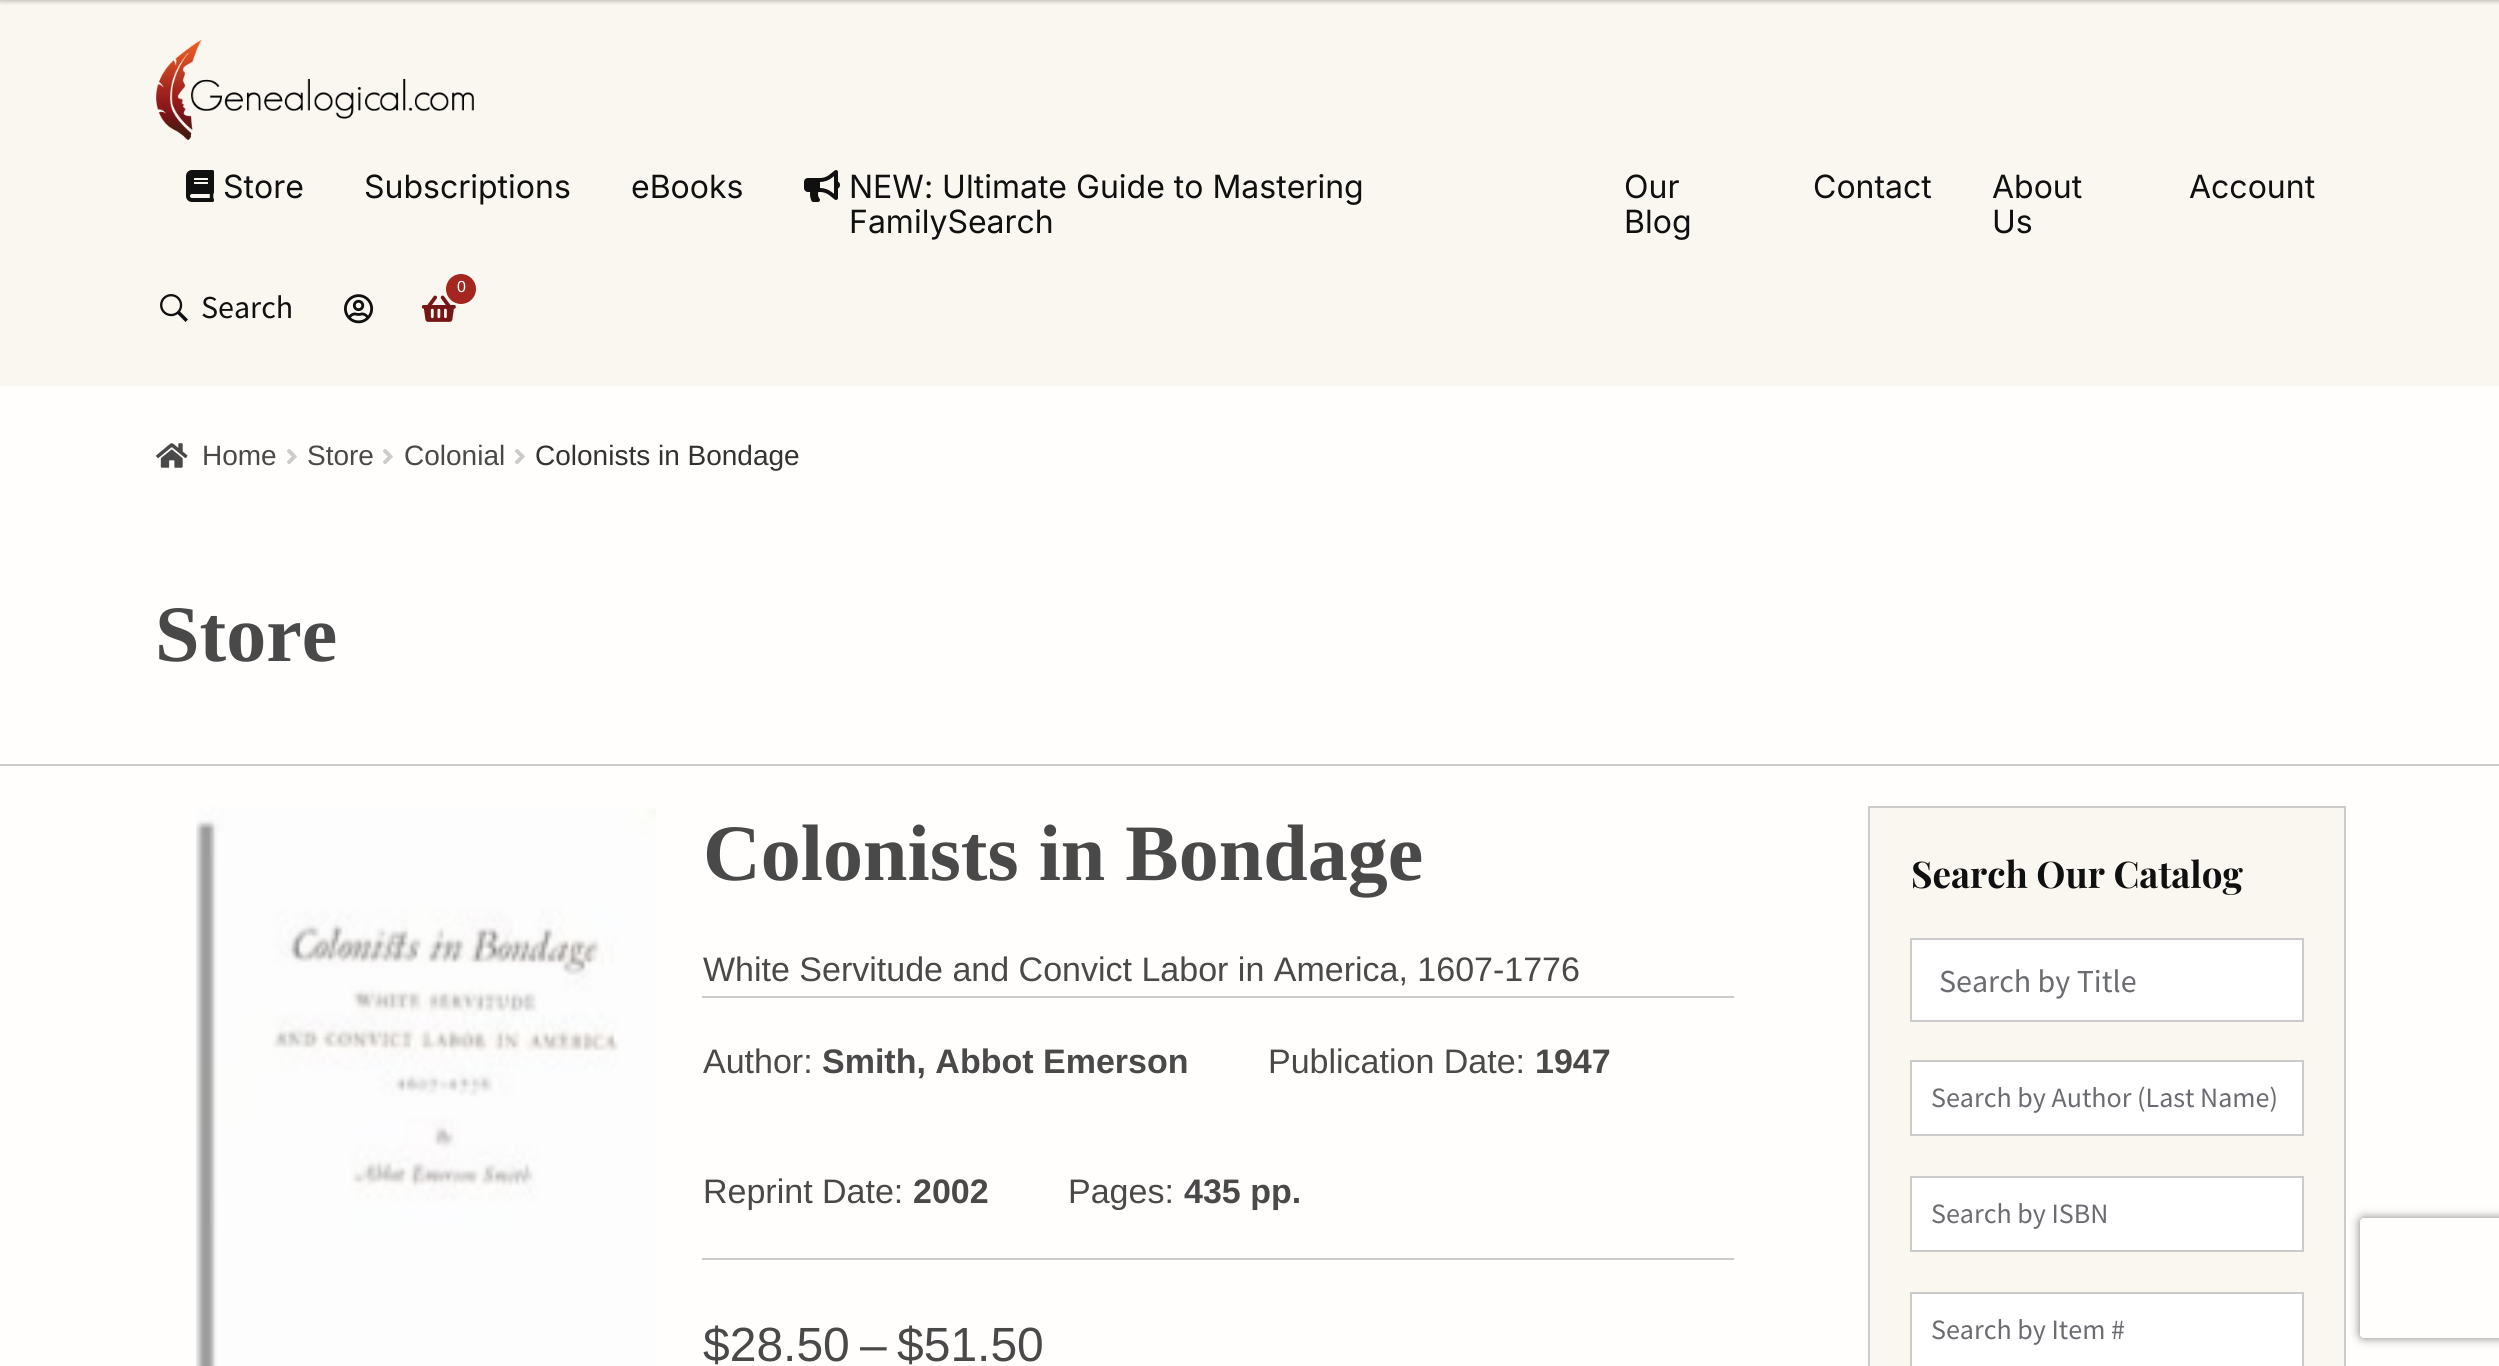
#include <cairo.h>
#include <math.h>
#include <stddef.h>

typedef struct { const char *family; double size; int italic, bold; unsigned color; } style_t;
static cairo_t *ctx;

static void ink(unsigned color) {
    cairo_set_source_rgb(ctx, (color >> 16) / 255.0, (color >> 8 & 255) / 255.0, (color & 255) / 255.0);
}

static void write(double x, double y, const char *s, const style_t *st) {
    cairo_select_font_face(ctx, st->family, st->italic ? CAIRO_FONT_SLANT_ITALIC : CAIRO_FONT_SLANT_NORMAL,
        st->bold ? CAIRO_FONT_WEIGHT_BOLD : CAIRO_FONT_WEIGHT_NORMAL);
    cairo_set_font_size(ctx, st->size);
    ink(st->color);
    cairo_move_to(ctx, x, y);
    cairo_show_text(ctx, s);
}

static void block(double x, double y, double w, double h, unsigned color) {
    ink(color);
    cairo_rectangle(ctx, x, y, w, h);
    cairo_fill(ctx);
}

static void round_path(double x, double y, double w, double h, double r) {
    cairo_new_sub_path(ctx);
    cairo_arc(ctx, x + w - r, y + h - r, r, 0, M_PI / 2);
    cairo_arc(ctx, x + r, y + h - r, r, M_PI / 2, M_PI);
    cairo_arc(ctx, x + r, y + r, r, M_PI, 1.5 * M_PI);
    cairo_arc(ctx, x + w - r, y + r, r, 1.5 * M_PI, 2 * M_PI);
    cairo_close_path(ctx);
}

static void blur_box(double x, double y, double w, double h, double r, double blur, double alpha) {
    cairo_push_group_with_content(ctx, CAIRO_CONTENT_ALPHA);
    cairo_set_operator(ctx, CAIRO_OPERATOR_SOURCE);
    for (int i = 15; i >= -15 && fmin(w, h) + blur * i / 3 > 0; i -= 2) {
        double e = blur * i / 6;
        cairo_set_source_rgba(ctx, 0, 0, 0, alpha * erfc((i - 1) / 8.5) / 2);
        round_path(x - e, y - e, w + 2 * e, h + 2 * e, fmax(0, fmin(r + e + blur * .6, fmin(w, h) / 2 + e)));
        cairo_fill(ctx);
    }
    cairo_pattern_t *soft = cairo_pop_group(ctx);
    cairo_mask(ctx, soft);
    cairo_pattern_destroy(soft);
}

static void paste(const char *path, double x, double y, double w, double h) {
    cairo_surface_t *image = cairo_image_surface_create_from_png(path);
    cairo_save(ctx);
    cairo_set_source_surface(ctx, image, x, y);
    cairo_rectangle(ctx, x, y, w, h);
    cairo_fill(ctx);
    cairo_restore(ctx);
    cairo_surface_destroy(image);
}

static const style_t s1 = {"Inter", 32, 0, 0, 0x101010};
static const style_t s2 = {"Liberation Sans", 16, 0, 0, 0xffffff};
static const style_t s3 = {"Source Sans Pro", 32, 0, 0, 0x101010};
static const style_t s4 = {"Liberation Sans", 28, 0, 0, 0x494949};
static const style_t s5 = {"Liberation Sans", 28, 0, 0, 0x333232};
static const style_t s6 = {"Liberation Serif", 80, 0, 1, 0x494949};
static const style_t s7 = {"Liberation Sans", 34, 0, 0, 0x494949};
static const style_t s8 = {"Liberation Sans", 34, 0, 1, 0x494949};
static const style_t s9 = {"Liberation Sans", 48, 0, 0, 0x494949};
static const style_t s10 = {"Playfair Display", 36.75, 0, 1, 0x101010};
static const style_t s11 = {"Source Sans Pro", 32, 0, 0, 0x6a6c71};
static const style_t s12 = {"Source Sans Pro", 28, 0, 0, 0x6a6c71};

int main(void) {
    cairo_surface_t *surface = cairo_image_surface_create(CAIRO_FORMAT_RGB24, 2499, 1366);
    ctx = cairo_create(surface);
    cairo_font_options_t *options = cairo_font_options_create();
    cairo_font_options_set_hint_metrics(options, CAIRO_HINT_METRICS_OFF);
    cairo_font_options_set_hint_style(options, CAIRO_HINT_STYLE_NONE);
    cairo_set_font_options(ctx, options);
    cairo_set_miter_limit(ctx, 4);
    ink(0xfffefc);
    cairo_paint(ctx);
    block(0, 0, 2499, 386, 0xf9f7f0);
    ink(0x000000);
    blur_box(0, -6, 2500, 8, 0, 2, 0.2);
    paste("pic1.png", 156, 40, 318, 100);
    paste("pic2.png", 186, 170, 28, 32);
    write(223, 198, "Store", &s1);
    write(364, 198, "Subscriptions", &s1);
    write(631, 198, "eBooks", &s1);
    paste("pic3.png", 804, 170, 36, 32);
    write(849, 198, "NEW: Ultimate Guide to Mastering", &s1);
    write(849, 233, "FamilySearch", &s1);
    write(1624, 198, "Our", &s1);
    write(1624, 233, "Blog", &s1);
    write(1813, 198, "Contact", &s1);
    write(1992, 198, "About", &s1);
    write(1992, 233, "Us", &s1);
    write(2189, 198, "Account", &s1);
    paste("pic4.png", 422, 295, 34, 27);
    ink(0xa4271f);
    cairo_arc(ctx, 461, 289, 15, 0, 2 * M_PI);
    cairo_fill(ctx);
    write(457, 292, "0", &s2);
    paste("pic5.png", 160, 294, 28, 28);
    write(201, 318, "Search", &s3);
    paste("pic6.png", 344, 294, 30, 30);
    paste("pic7.png", 156, 443, 32, 25);
    write(202, 465, "Home", &s4);
    paste("pic8.png", 287, 449, 10, 16);
    write(307, 465, "Store", &s4);
    paste("pic8.png", 383, 449, 10, 16);
    write(404, 465, "Colonial", &s4);
    paste("pic8.png", 515, 449, 10, 16);
    write(535, 465, "Colonists in Bondage", &s5);
    write(155, 661, "Store", &s6);
    block(0, 764, 2499, 2, 0xcbcbcb);
    paste("pic9.png", 196, 807, 460, 559);
    write(703, 880, "Colonists in Bondage", &s6);
    write(703, 981, "White Servitude and Convict Labor in America, 1607-1776", &s7);
    block(702, 996, 1032, 2, 0xcbcbcb);
    block(702, 1258, 1032, 2, 0xcbcbcb);
    write(703, 1073, "Author:", &s7);
    write(822, 1073, "Smith, Abbot Emerson", &s8);
    write(1268, 1073, "Publication Date:", &s7);
    write(1535, 1073, "1947", &s8);
    write(703, 1203, "Reprint Date:", &s7);
    write(913, 1203, "2002", &s8);
    write(1068, 1203, "Pages:", &s7);
    write(1184, 1203, "435 pp.", &s8);
    write(703, 1361, "$28.50", &s9);
    write(860, 1361, "–", &s9);
    write(897, 1361, "$51.50", &s9);
    block(1870, 808, 474, 558, 0xf9f7f0);
    block(1868, 806, 478, 2, 0xcbcbcb);
    block(2344, 806, 2, 560, 0xcbcbcb);
    block(1868, 806, 2, 560, 0xcbcbcb);
    write(1911, 888, "Search Our Catalog", &s10);
    ink(0xffffff);
    cairo_rectangle(ctx, 1911, 939, 392, 82);
    cairo_fill_preserve(ctx);
    ink(0xcbcbcb);
    cairo_stroke(ctx);
    write(1939, 992, "Search by Title", &s11);
    ink(0xffffff);
    cairo_rectangle(ctx, 1911, 1061, 392, 74);
    cairo_fill_preserve(ctx);
    ink(0xcbcbcb);
    cairo_stroke(ctx);
    write(1931, 1107, "Search by Author (Last Name)", &s12);
    ink(0xffffff);
    cairo_rectangle(ctx, 1911, 1177, 392, 74);
    cairo_fill_preserve(ctx);
    ink(0xcbcbcb);
    cairo_stroke(ctx);
    write(1931, 1223, "Search by ISBN", &s12);
    ink(0xffffff);
    cairo_rectangle(ctx, 1911, 1293, 392, 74);
    cairo_fill_preserve(ctx);
    ink(0xcbcbcb);
    cairo_stroke(ctx);
    write(1931, 1339, "Search by Item #", &s12);
    cairo_save(ctx);
    cairo_set_fill_rule(ctx, CAIRO_FILL_RULE_EVEN_ODD);
    cairo_new_path(ctx);
    cairo_move_to(ctx, 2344, 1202);
    cairo_line_to(ctx, 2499, 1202);
    cairo_line_to(ctx, 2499, 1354);
    cairo_line_to(ctx, 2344, 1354);
    cairo_close_path(ctx);
    cairo_move_to(ctx, 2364, 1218);
    cairo_line_to(ctx, 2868, 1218);
    cairo_curve_to(ctx, 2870, 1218, 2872, 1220, 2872, 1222);
    cairo_line_to(ctx, 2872, 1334);
    cairo_curve_to(ctx, 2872, 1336, 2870, 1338, 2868, 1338);
    cairo_line_to(ctx, 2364, 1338);
    cairo_curve_to(ctx, 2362, 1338, 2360, 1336, 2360, 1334);
    cairo_line_to(ctx, 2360, 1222);
    cairo_curve_to(ctx, 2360, 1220, 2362, 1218, 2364, 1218);
    cairo_close_path(ctx);
    cairo_clip(ctx);
    ink(0x808080);
    blur_box(2360, 1218, 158, 120, 4, 5, 1);
    cairo_restore(ctx);
    cairo_surface_write_to_png(surface, "screenshot.png");
    cairo_font_options_destroy(options);
    cairo_destroy(ctx);
    cairo_surface_destroy(surface);
    return 0;
}
